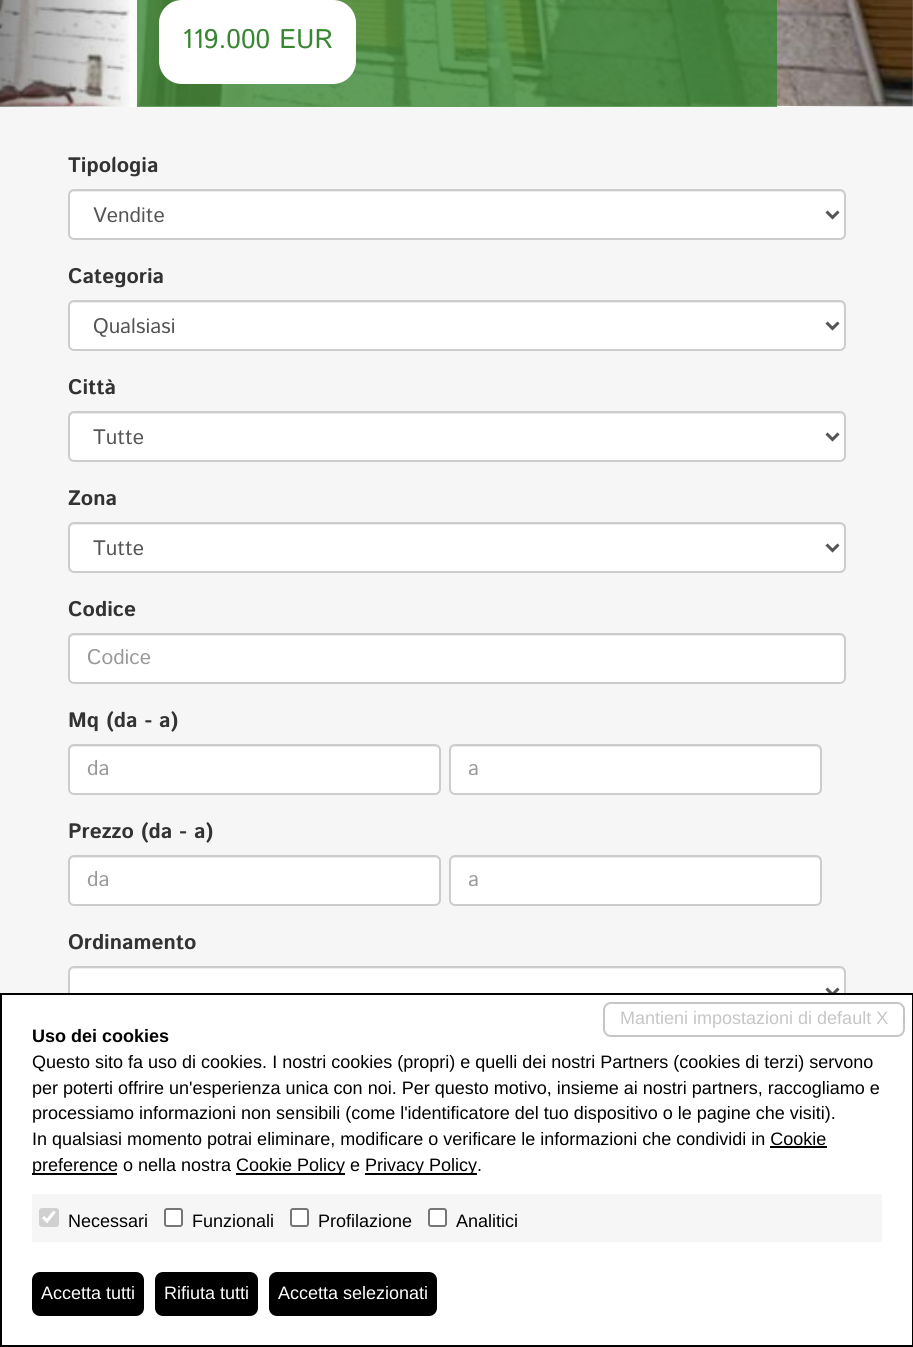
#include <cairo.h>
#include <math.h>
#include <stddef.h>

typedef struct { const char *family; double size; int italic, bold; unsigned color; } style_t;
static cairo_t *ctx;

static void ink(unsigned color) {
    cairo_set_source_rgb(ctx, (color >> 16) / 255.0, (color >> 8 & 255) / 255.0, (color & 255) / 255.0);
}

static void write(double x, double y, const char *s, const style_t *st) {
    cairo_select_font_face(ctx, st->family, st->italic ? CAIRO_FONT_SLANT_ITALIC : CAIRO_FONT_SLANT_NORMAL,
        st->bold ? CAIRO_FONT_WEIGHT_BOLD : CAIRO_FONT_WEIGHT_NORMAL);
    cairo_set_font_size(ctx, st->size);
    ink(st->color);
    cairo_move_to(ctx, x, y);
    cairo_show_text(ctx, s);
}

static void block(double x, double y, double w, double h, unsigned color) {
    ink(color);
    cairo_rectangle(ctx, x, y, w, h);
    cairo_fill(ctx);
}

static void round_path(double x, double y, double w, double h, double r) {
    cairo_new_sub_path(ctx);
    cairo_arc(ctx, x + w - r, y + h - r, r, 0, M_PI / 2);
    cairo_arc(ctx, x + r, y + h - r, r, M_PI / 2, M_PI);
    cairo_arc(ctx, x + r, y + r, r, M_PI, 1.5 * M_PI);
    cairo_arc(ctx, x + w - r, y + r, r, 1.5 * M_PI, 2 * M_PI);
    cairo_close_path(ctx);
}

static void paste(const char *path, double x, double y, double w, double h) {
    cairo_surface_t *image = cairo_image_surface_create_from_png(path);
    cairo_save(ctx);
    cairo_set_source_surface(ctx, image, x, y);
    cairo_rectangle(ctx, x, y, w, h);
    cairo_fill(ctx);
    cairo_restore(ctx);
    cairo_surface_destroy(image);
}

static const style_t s1 = {"Istok Web", 27, 0, 0, 0x388632};
static const style_t s2 = {"Istok Web", 21, 0, 1, 0x333333};
static const style_t s3 = {"Istok Web", 21, 0, 0, 0x555555};
static const style_t s4 = {"Istok Web", 21, 0, 0, 0x999999};
static const style_t s5 = {"Liberation Sans", 18, 0, 0, 0xc6c6c6};
static const style_t s6 = {"Liberation Sans", 18, 0, 1, 0x000000};
static const style_t s7 = {"Liberation Sans", 18, 0, 0, 0x000000};
static const style_t s8 = {"Liberation Sans", 18, 0, 0, 0xffffff};

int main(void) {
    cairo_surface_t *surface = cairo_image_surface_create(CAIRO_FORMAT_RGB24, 913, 1347);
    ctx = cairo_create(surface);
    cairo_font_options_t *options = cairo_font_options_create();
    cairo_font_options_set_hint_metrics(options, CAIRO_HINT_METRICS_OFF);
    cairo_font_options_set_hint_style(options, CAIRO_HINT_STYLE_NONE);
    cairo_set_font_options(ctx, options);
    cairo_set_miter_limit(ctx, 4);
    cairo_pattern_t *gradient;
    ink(0xffffff);
    cairo_paint(ctx);
    paste("pic1.png", 0, 0, 913, 106);
    gradient = cairo_pattern_create_linear(0, -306, 137, -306);
    cairo_pattern_add_color_stop_rgba(gradient, 0, 0, 0, 0, 0.45);
    cairo_pattern_add_color_stop_rgba(gradient, 1, 0, 0, 0, 0);
    cairo_set_source(ctx, gradient);
    cairo_pattern_destroy(gradient);
    cairo_rectangle(ctx, 0, 0, 130, 107);
    cairo_fill(ctx);
    cairo_set_source_rgba(ctx, 0.22, 0.525, 0.196, 0.8);
    cairo_rectangle(ctx, 137, 0, 640, 107);
    cairo_fill(ctx);
    ink(0xffffff);
    round_path(159, 0, 197, 84, 23);
    cairo_fill(ctx);
    write(182, 48, "119.000 EUR", &s1);
    gradient = cairo_pattern_create_linear(777, -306, 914, -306);
    cairo_pattern_add_color_stop_rgba(gradient, 0, 0, 0, 0, 0);
    cairo_pattern_add_color_stop_rgba(gradient, 1, 0, 0, 0, 0.25);
    cairo_set_source(ctx, gradient);
    cairo_pattern_destroy(gradient);
    cairo_rectangle(ctx, 789, 0, 124, 107);
    cairo_fill(ctx);
    block(0, 107, 913, 886, 0xf6f6f6);
    write(68, 172, "Tipologia", &s2);
    ink(0xffffff);
    round_path(68, 189, 778, 51, 6);
    cairo_fill(ctx);
    ink(0xececec);
    cairo_new_path(ctx);
    cairo_move_to(ctx, 74, 192);
    cairo_line_to(ctx, 840, 192);
    cairo_curve_to(ctx, 842, 192, 844, 194, 844, 196);
    cairo_line_to(ctx, 844, 237);
    cairo_curve_to(ctx, 845, 236, 845, 235, 845, 234);
    cairo_line_to(ctx, 845, 196);
    cairo_curve_to(ctx, 845, 193, 843, 191, 840, 191);
    cairo_line_to(ctx, 74, 191);
    cairo_curve_to(ctx, 71, 191, 69, 193, 69, 196);
    cairo_curve_to(ctx, 69, 194, 71, 192, 74, 192);
    cairo_close_path(ctx);
    cairo_fill(ctx);
    round_path(69, 190, 776, 49, 5);
    ink(0xcccccc);
    cairo_stroke(ctx);
    cairo_new_path(ctx);
    cairo_move_to(ctx, 826.5, 211.5);
    cairo_line_to(ctx, 832.5, 217.5);
    cairo_line_to(ctx, 838.5, 211.5);
    ink(0x555555);
    cairo_set_line_width(ctx, 3);
    cairo_stroke(ctx);
    write(93, 222, "Vendite", &s3);
    write(68, 283, "Categoria", &s2);
    ink(0xffffff);
    round_path(68, 300, 778, 51, 6);
    cairo_fill(ctx);
    ink(0xececec);
    cairo_new_path(ctx);
    cairo_move_to(ctx, 74, 303);
    cairo_line_to(ctx, 840, 303);
    cairo_curve_to(ctx, 842, 303, 844, 305, 844, 308);
    cairo_line_to(ctx, 844, 346);
    cairo_line_to(ctx, 843, 349);
    cairo_curve_to(ctx, 844, 348, 845, 346, 845, 345);
    cairo_line_to(ctx, 845, 307);
    cairo_curve_to(ctx, 845, 304, 843, 302, 840, 302);
    cairo_line_to(ctx, 74, 302);
    cairo_curve_to(ctx, 71, 302, 69, 304, 69, 307);
    cairo_line_to(ctx, 69, 308);
    cairo_curve_to(ctx, 69, 305, 71, 303, 74, 303);
    cairo_close_path(ctx);
    cairo_fill(ctx);
    round_path(69, 301, 776, 49, 5);
    ink(0xcccccc);
    cairo_set_line_width(ctx, 2);
    cairo_stroke(ctx);
    cairo_new_path(ctx);
    cairo_move_to(ctx, 826.5, 322.5);
    cairo_line_to(ctx, 832.5, 328.5);
    cairo_line_to(ctx, 838.5, 322.5);
    ink(0x555555);
    cairo_set_line_width(ctx, 3);
    cairo_stroke(ctx);
    write(93, 333, "Qualsiasi", &s3);
    write(68, 394, "Città", &s2);
    ink(0xffffff);
    round_path(68, 411, 778, 51, 6);
    cairo_fill(ctx);
    ink(0xececec);
    cairo_new_path(ctx);
    cairo_move_to(ctx, 74, 414);
    cairo_line_to(ctx, 840, 414);
    cairo_curve_to(ctx, 842, 414, 844, 416, 844, 418);
    cairo_line_to(ctx, 844, 459);
    cairo_curve_to(ctx, 845, 458, 845, 457, 845, 456);
    cairo_line_to(ctx, 845, 418);
    cairo_curve_to(ctx, 845, 415, 843, 413, 840, 413);
    cairo_line_to(ctx, 74, 413);
    cairo_curve_to(ctx, 71, 413, 69, 415, 69, 418);
    cairo_curve_to(ctx, 69, 416, 71, 414, 74, 414);
    cairo_close_path(ctx);
    cairo_fill(ctx);
    round_path(69, 412, 776, 49, 5);
    ink(0xcccccc);
    cairo_set_line_width(ctx, 2);
    cairo_stroke(ctx);
    cairo_new_path(ctx);
    cairo_move_to(ctx, 826.5, 433.5);
    cairo_line_to(ctx, 832.5, 439.5);
    cairo_line_to(ctx, 838.5, 433.5);
    ink(0x555555);
    cairo_set_line_width(ctx, 3);
    cairo_stroke(ctx);
    write(93, 444, "Tutte", &s3);
    write(68, 505, "Zona", &s2);
    ink(0xffffff);
    round_path(68, 522, 778, 51, 6);
    cairo_fill(ctx);
    ink(0xececec);
    cairo_new_path(ctx);
    cairo_move_to(ctx, 74, 525);
    cairo_line_to(ctx, 840, 525);
    cairo_curve_to(ctx, 842, 525, 844, 527, 844, 530);
    cairo_line_to(ctx, 844, 568);
    cairo_line_to(ctx, 843, 571);
    cairo_curve_to(ctx, 844, 570, 845, 568, 845, 567);
    cairo_line_to(ctx, 845, 529);
    cairo_curve_to(ctx, 845, 526, 843, 524, 840, 524);
    cairo_line_to(ctx, 74, 524);
    cairo_curve_to(ctx, 71, 524, 69, 526, 69, 529);
    cairo_line_to(ctx, 69, 530);
    cairo_curve_to(ctx, 69, 527, 71, 525, 74, 525);
    cairo_close_path(ctx);
    cairo_fill(ctx);
    round_path(69, 523, 776, 49, 5);
    ink(0xcccccc);
    cairo_set_line_width(ctx, 2);
    cairo_stroke(ctx);
    cairo_new_path(ctx);
    cairo_move_to(ctx, 826.5, 544.5);
    cairo_line_to(ctx, 832.5, 550.5);
    cairo_line_to(ctx, 838.5, 544.5);
    ink(0x555555);
    cairo_set_line_width(ctx, 3);
    cairo_stroke(ctx);
    write(93, 555, "Tutte", &s3);
    write(68, 616, "Codice", &s2);
    ink(0xffffff);
    round_path(68, 633, 778, 51, 6);
    cairo_fill(ctx);
    ink(0xececec);
    cairo_new_path(ctx);
    cairo_move_to(ctx, 74, 636);
    cairo_line_to(ctx, 840, 636);
    cairo_curve_to(ctx, 842, 636, 844, 638, 844, 640);
    cairo_line_to(ctx, 844, 681);
    cairo_curve_to(ctx, 845, 680, 845, 679, 845, 678);
    cairo_line_to(ctx, 845, 640);
    cairo_curve_to(ctx, 845, 637, 843, 635, 840, 635);
    cairo_line_to(ctx, 74, 635);
    cairo_curve_to(ctx, 71, 635, 69, 637, 69, 640);
    cairo_curve_to(ctx, 69, 638, 71, 636, 74, 636);
    cairo_close_path(ctx);
    cairo_fill(ctx);
    round_path(69, 634, 776, 49, 5);
    ink(0xcccccc);
    cairo_set_line_width(ctx, 2);
    cairo_stroke(ctx);
    write(87, 664, "Codice", &s4);
    write(68, 727, "Mq (da - a)", &s2);
    ink(0xffffff);
    round_path(68, 744, 373, 51, 6);
    cairo_fill(ctx);
    ink(0xececec);
    cairo_new_path(ctx);
    cairo_move_to(ctx, 74, 747);
    cairo_line_to(ctx, 435, 747);
    cairo_curve_to(ctx, 437, 747, 440, 749, 440, 752);
    cairo_line_to(ctx, 440, 751);
    cairo_curve_to(ctx, 440, 748, 438, 746, 435, 746);
    cairo_line_to(ctx, 74, 746);
    cairo_curve_to(ctx, 71, 746, 69, 748, 69, 751);
    cairo_line_to(ctx, 69, 752);
    cairo_curve_to(ctx, 69, 749, 71, 747, 74, 747);
    cairo_close_path(ctx);
    cairo_fill(ctx);
    round_path(69, 745, 371, 49, 5);
    ink(0xcccccc);
    cairo_stroke(ctx);
    write(87, 775, "da", &s4);
    ink(0xffffff);
    round_path(449, 744, 373, 51, 6);
    cairo_fill(ctx);
    ink(0xececec);
    cairo_new_path(ctx);
    cairo_move_to(ctx, 454, 747);
    cairo_line_to(ctx, 816, 747);
    cairo_curve_to(ctx, 818, 747, 820, 749, 820, 752);
    cairo_line_to(ctx, 820, 790);
    cairo_line_to(ctx, 819, 793);
    cairo_curve_to(ctx, 820, 792, 821, 790, 821, 789);
    cairo_line_to(ctx, 821, 751);
    cairo_curve_to(ctx, 821, 748, 819, 746, 816, 746);
    cairo_line_to(ctx, 455, 746);
    cairo_curve_to(ctx, 452, 746, 450, 748, 450, 751);
    cairo_line_to(ctx, 450, 752);
    cairo_curve_to(ctx, 450, 749, 452, 747, 454, 747);
    cairo_close_path(ctx);
    cairo_fill(ctx);
    round_path(450, 745, 371, 49, 5);
    ink(0xcccccc);
    cairo_stroke(ctx);
    write(468, 775, "a", &s4);
    write(68, 838, "Prezzo (da - a)", &s2);
    ink(0xffffff);
    round_path(68, 855, 373, 51, 6);
    cairo_fill(ctx);
    ink(0xececec);
    cairo_new_path(ctx);
    cairo_move_to(ctx, 74, 858);
    cairo_line_to(ctx, 435, 858);
    cairo_curve_to(ctx, 437, 858, 440, 860, 440, 862);
    cairo_curve_to(ctx, 440, 859, 438, 857, 435, 857);
    cairo_line_to(ctx, 74, 857);
    cairo_curve_to(ctx, 71, 857, 69, 859, 69, 862);
    cairo_curve_to(ctx, 69, 860, 71, 858, 74, 858);
    cairo_close_path(ctx);
    cairo_fill(ctx);
    round_path(69, 856, 371, 49, 5);
    ink(0xcccccc);
    cairo_stroke(ctx);
    write(87, 886, "da", &s4);
    ink(0xffffff);
    round_path(449, 855, 373, 51, 6);
    cairo_fill(ctx);
    ink(0xececec);
    cairo_new_path(ctx);
    cairo_move_to(ctx, 454, 858);
    cairo_line_to(ctx, 816, 858);
    cairo_curve_to(ctx, 818, 858, 820, 860, 820, 862);
    cairo_line_to(ctx, 820, 903);
    cairo_curve_to(ctx, 821, 902, 821, 901, 821, 900);
    cairo_line_to(ctx, 821, 862);
    cairo_curve_to(ctx, 821, 859, 819, 857, 816, 857);
    cairo_line_to(ctx, 455, 857);
    cairo_curve_to(ctx, 452, 857, 450, 859, 450, 862);
    cairo_curve_to(ctx, 450, 860, 452, 858, 454, 858);
    cairo_close_path(ctx);
    cairo_fill(ctx);
    round_path(450, 856, 371, 49, 5);
    ink(0xcccccc);
    cairo_stroke(ctx);
    write(468, 886, "a", &s4);
    write(68, 949, "Ordinamento", &s2);
    ink(0xffffff);
    round_path(68, 966, 778, 51, 6);
    cairo_fill(ctx);
    ink(0xececec);
    cairo_new_path(ctx);
    cairo_move_to(ctx, 74, 969);
    cairo_line_to(ctx, 840, 969);
    cairo_curve_to(ctx, 842, 969, 844, 971, 844, 974);
    cairo_line_to(ctx, 844, 1012);
    cairo_line_to(ctx, 843, 1015);
    cairo_curve_to(ctx, 844, 1014, 845, 1012, 845, 1011);
    cairo_line_to(ctx, 845, 973);
    cairo_curve_to(ctx, 845, 970, 843, 968, 840, 968);
    cairo_line_to(ctx, 74, 968);
    cairo_curve_to(ctx, 71, 968, 69, 970, 69, 973);
    cairo_line_to(ctx, 69, 974);
    cairo_curve_to(ctx, 69, 971, 71, 969, 74, 969);
    cairo_close_path(ctx);
    cairo_fill(ctx);
    round_path(69, 967, 776, 49, 5);
    ink(0xcccccc);
    cairo_stroke(ctx);
    cairo_new_path(ctx);
    cairo_move_to(ctx, 826.5, 988.5);
    cairo_line_to(ctx, 832.5, 994.5);
    cairo_line_to(ctx, 838.5, 988.5);
    ink(0x555555);
    cairo_set_line_width(ctx, 3);
    cairo_stroke(ctx);
    block(68, 995, 778, 22, 0xffffff);
    cairo_rectangle(ctx, 1, 994, 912, 352);
    ink(0x000000);
    cairo_set_line_width(ctx, 2);
    cairo_stroke(ctx);
    round_path(604, 1003, 300, 33, 7);
    ink(0xc6c6c6);
    cairo_stroke(ctx);
    write(620, 1024, "Mantieni impostazioni di default X", &s5);
    write(32, 1042, "Uso dei cookies", &s6);
    write(32, 1068, "Questo sito fa uso di cookies. I nostri cookies (propri) e quelli dei nostri Partners (cookies di terzi) servono", &s7);
    write(32, 1094, "per poterti offrire un'esperienza unica con noi. Per questo motivo, insieme ai nostri partners, raccogliamo e", &s7);
    write(32, 1119, "processiamo informazioni non sensibili (come l'identificatore del tuo dispositivo o le pagine che visiti).", &s7);
    write(32, 1145, "In qualsiasi momento potrai eliminare, modificare o verificare le informazioni che condividi in Cookie", &s7);
    block(32, 1173, 85, 2, 0x000000);
    write(32, 1171, "preference o nella nostra", &s7);
    block(770, 1146, 57, 2, 0x000000);
    block(236, 1173, 109, 2, 0x000000);
    write(236, 1171, "Cookie Policy e", &s7);
    block(365, 1173, 112, 2, 0x000000);
    write(365, 1171, "Privacy Policy.", &s7);
    block(32, 1194, 850, 48, 0xf6f6f6);
    ink(0xd0d0d0);
    round_path(39, 1208, 20, 19, 3);
    cairo_fill(ctx);
    cairo_new_path(ctx);
    cairo_move_to(ctx, 43, 1217);
    cairo_line_to(ctx, 47, 1221);
    cairo_line_to(ctx, 54.5, 1211.5);
    ink(0xffffff);
    cairo_set_line_width(ctx, 3.1);
    cairo_stroke(ctx);
    write(68, 1227, "Necessari", &s7);
    ink(0xffffff);
    round_path(165, 1209, 17, 17, 2);
    cairo_fill_preserve(ctx);
    ink(0x767676);
    cairo_set_line_width(ctx, 2);
    cairo_stroke(ctx);
    write(192, 1227, "Funzionali", &s7);
    ink(0xffffff);
    round_path(291, 1209, 17, 17, 2);
    cairo_fill_preserve(ctx);
    ink(0x767676);
    cairo_stroke(ctx);
    write(318, 1227, "Profilazione", &s7);
    ink(0xffffff);
    round_path(429, 1209, 17, 17, 2);
    cairo_fill_preserve(ctx);
    ink(0x767676);
    cairo_stroke(ctx);
    write(456, 1227, "Analitici", &s7);
    round_path(33, 1273, 110, 42, 7);
    cairo_fill_preserve(ctx);
    cairo_stroke(ctx);
    write(41, 1299, "Accetta tutti", &s8);
    ink(0x000000);
    round_path(156, 1273, 101, 42, 7);
    cairo_fill_preserve(ctx);
    cairo_stroke(ctx);
    write(164, 1299, "Rifiuta tutti", &s8);
    ink(0x000000);
    round_path(270, 1273, 166, 42, 7);
    cairo_fill_preserve(ctx);
    cairo_stroke(ctx);
    write(278, 1299, "Accetta selezionati", &s8);
    cairo_surface_write_to_png(surface, "screenshot.png");
    cairo_font_options_destroy(options);
    cairo_destroy(ctx);
    cairo_surface_destroy(surface);
    return 0;
}
